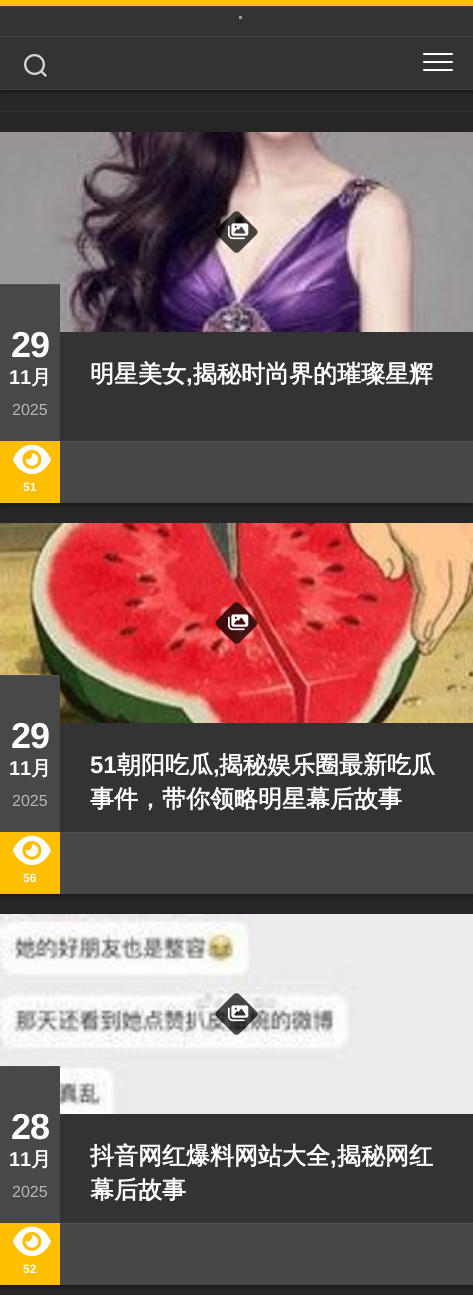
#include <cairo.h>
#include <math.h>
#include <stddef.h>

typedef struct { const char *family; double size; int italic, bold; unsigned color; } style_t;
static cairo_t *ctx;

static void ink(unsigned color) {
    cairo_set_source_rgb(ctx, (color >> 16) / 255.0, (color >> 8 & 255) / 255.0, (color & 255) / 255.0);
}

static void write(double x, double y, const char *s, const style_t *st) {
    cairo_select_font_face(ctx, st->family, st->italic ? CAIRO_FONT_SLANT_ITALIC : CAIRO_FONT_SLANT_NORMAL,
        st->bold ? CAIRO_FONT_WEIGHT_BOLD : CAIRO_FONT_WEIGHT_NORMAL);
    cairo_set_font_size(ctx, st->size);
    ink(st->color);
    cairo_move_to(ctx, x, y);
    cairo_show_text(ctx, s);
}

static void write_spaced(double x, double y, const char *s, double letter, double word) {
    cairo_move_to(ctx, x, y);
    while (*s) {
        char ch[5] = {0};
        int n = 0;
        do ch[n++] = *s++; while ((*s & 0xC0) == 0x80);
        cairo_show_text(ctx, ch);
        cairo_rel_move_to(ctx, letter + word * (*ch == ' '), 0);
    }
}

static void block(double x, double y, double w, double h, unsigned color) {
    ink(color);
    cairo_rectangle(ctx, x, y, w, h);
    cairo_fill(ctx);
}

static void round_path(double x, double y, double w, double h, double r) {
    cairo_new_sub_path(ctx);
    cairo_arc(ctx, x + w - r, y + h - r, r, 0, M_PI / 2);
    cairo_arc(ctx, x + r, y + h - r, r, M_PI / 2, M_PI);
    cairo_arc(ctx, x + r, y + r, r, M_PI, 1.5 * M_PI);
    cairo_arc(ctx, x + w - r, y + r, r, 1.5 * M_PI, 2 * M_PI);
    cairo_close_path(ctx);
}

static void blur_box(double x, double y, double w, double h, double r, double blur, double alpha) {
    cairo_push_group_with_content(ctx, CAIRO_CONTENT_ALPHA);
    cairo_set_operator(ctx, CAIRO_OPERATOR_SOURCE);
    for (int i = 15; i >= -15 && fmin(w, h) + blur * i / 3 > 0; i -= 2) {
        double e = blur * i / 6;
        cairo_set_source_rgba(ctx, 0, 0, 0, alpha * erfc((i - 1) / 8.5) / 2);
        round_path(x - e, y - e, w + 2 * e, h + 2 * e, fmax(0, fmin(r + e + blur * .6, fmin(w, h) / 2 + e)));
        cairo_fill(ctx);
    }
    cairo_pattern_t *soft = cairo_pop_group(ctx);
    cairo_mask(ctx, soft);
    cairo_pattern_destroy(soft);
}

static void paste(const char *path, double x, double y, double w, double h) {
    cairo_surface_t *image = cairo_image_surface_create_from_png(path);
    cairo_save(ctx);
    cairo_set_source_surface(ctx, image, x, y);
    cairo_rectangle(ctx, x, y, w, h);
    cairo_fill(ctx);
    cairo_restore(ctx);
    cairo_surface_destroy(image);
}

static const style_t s1 = {"Liberation Sans", 20, 0, 1, 0xffffff};
static const style_t s2 = {"WenQuanYi Zen Hei", 20, 0, 1, 0xffffff};
static const style_t s3 = {"Liberation Sans", 16, 0, 0, 0xb6b6b6};
static const style_t s4 = {"Liberation Sans", 12, 0, 1, 0xffffff};
static const style_t s5 = {"WenQuanYi Zen Hei", 24, 0, 1, 0xffffff};
static const style_t s6 = {"Liberation Sans", 24, 0, 1, 0xffffff};

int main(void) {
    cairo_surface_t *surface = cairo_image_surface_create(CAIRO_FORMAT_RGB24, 473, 1295);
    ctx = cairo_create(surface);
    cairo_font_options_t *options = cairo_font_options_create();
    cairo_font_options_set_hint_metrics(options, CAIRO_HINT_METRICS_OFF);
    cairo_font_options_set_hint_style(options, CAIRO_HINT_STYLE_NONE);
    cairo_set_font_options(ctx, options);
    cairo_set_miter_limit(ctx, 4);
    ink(0x262626);
    cairo_paint(ctx);
    block(0, 0, 473, 6, 0xfebe02);
    block(0, 90, 473, 1, 0x202020);
    ink(0x000000);
    blur_box(0, 9, 473, 84, 0, 1.5, 0.3);
    block(0, 7, 473, 82, 0x333333);
    block(0, 6, 473, 1, 0x3f3f3f);
    block(0, 89, 473, 1, 0x3f3f3f);
    block(0, 36, 473, 1, 0x444444);
    block(239, 16, 3, 3, 0x9b9b9b);
    paste("pic1.png", 24, 54, 23, 23);
    ink(0xffffff);
    round_path(423, 53, 30, 2, 1);
    cairo_fill(ctx);
    round_path(423, 61, 30, 2, 1);
    cairo_fill(ctx);
    round_path(423, 69, 30, 2, 1);
    cairo_fill(ctx);
    block(0, 111, 473, 1, 0x333333);
    ink(0x000000);
    blur_box(0, 135, 473, 371, 0, 1.5, 0.3);
    block(60, 332, 413, 109, 0x333333);
    paste("pic3.png", 0, 132, 473, 200);
    block(0, 285, 60, 156, 0x484848);
    block(0, 284, 60, 1, 0x535353);
    cairo_select_font_face(ctx, "Liberation Sans", CAIRO_FONT_SLANT_NORMAL, CAIRO_FONT_WEIGHT_BOLD);
    cairo_set_font_size(ctx, 36);
    ink(0xffffff);
    write_spaced(11, 357, "29", -1, 0);
    write(9, 384, "11", &s1);
    write(31, 384, "月", &s2);
    write(12, 415, "2025", &s3);
    block(0, 441, 60, 62, 0xfebe02);
    paste("pic2.png", 13, 444, 38, 31);
    write(23, 491, "51", &s4);
    cairo_save(ctx);
    cairo_set_fill_rule(ctx, CAIRO_FILL_RULE_EVEN_ODD);
    cairo_new_path(ctx);
    cairo_move_to(ctx, 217, 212);
    cairo_line_to(ctx, 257, 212);
    cairo_line_to(ctx, 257, 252);
    cairo_line_to(ctx, 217, 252);
    cairo_close_path(ctx);
    cairo_move_to(ctx, 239.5, 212);
    cairo_line_to(ctx, 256.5, 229);
    cairo_curve_to(ctx, 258, 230.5, 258, 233.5, 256.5, 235);
    cairo_line_to(ctx, 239.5, 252);
    cairo_curve_to(ctx, 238, 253.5, 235, 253.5, 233.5, 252);
    cairo_line_to(ctx, 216.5, 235);
    cairo_curve_to(ctx, 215, 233.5, 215, 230.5, 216.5, 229);
    cairo_line_to(ctx, 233.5, 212);
    cairo_curve_to(ctx, 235, 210.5, 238, 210.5, 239.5, 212);
    cairo_close_path(ctx);
    cairo_clip(ctx);
    ink(0xffffff);
    blur_box(221, 216, 32, 32, 4, 1, 0.4);
    cairo_restore(ctx);
    cairo_set_source_rgba(ctx, 0, 0, 0, 0.7);
    cairo_new_path(ctx);
    cairo_move_to(ctx, 239, 212);
    cairo_line_to(ctx, 256, 229);
    cairo_curve_to(ctx, 258, 231, 258, 233, 256, 235);
    cairo_line_to(ctx, 239, 252);
    cairo_curve_to(ctx, 238, 253, 235, 253, 234, 252);
    cairo_line_to(ctx, 217, 235);
    cairo_curve_to(ctx, 215, 233, 215, 231, 217, 229);
    cairo_line_to(ctx, 234, 212);
    cairo_curve_to(ctx, 235, 211, 238, 211, 239, 212);
    cairo_close_path(ctx);
    cairo_fill(ctx);
    paste("pic4.png", 228, 223, 21, 17);
    write(90, 382, "明星美女", &s5);
    write(186, 382, ",", &s6);
    write(193, 382, "揭秘时尚界的璀璨星辉", &s5);
    block(60, 442, 413, 61, 0x474747);
    block(60, 441, 413, 1, 0x525252);
    ink(0x000000);
    blur_box(0, 526, 473, 371, 0, 1.5, 0.3);
    block(60, 723, 413, 109, 0x333333);
    paste("pic5.png", 0, 523, 473, 200);
    block(0, 676, 60, 156, 0x484848);
    block(0, 675, 60, 1, 0x535353);
    cairo_select_font_face(ctx, "Liberation Sans", CAIRO_FONT_SLANT_NORMAL, CAIRO_FONT_WEIGHT_BOLD);
    cairo_set_font_size(ctx, 36);
    ink(0xffffff);
    write_spaced(11, 748, "29", -1, 0);
    write(9, 775, "11", &s1);
    write(31, 775, "月", &s2);
    write(12, 806, "2025", &s3);
    block(0, 832, 60, 62, 0xfebe02);
    paste("pic2.png", 13, 835, 38, 31);
    write(23, 882, "56", &s4);
    cairo_save(ctx);
    cairo_set_fill_rule(ctx, CAIRO_FILL_RULE_EVEN_ODD);
    cairo_new_path(ctx);
    cairo_move_to(ctx, 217, 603);
    cairo_line_to(ctx, 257, 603);
    cairo_line_to(ctx, 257, 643);
    cairo_line_to(ctx, 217, 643);
    cairo_close_path(ctx);
    cairo_move_to(ctx, 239.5, 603);
    cairo_line_to(ctx, 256.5, 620);
    cairo_curve_to(ctx, 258, 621.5, 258, 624.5, 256.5, 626);
    cairo_line_to(ctx, 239.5, 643);
    cairo_curve_to(ctx, 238, 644.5, 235, 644.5, 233.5, 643);
    cairo_line_to(ctx, 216.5, 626);
    cairo_curve_to(ctx, 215, 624.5, 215, 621.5, 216.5, 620);
    cairo_line_to(ctx, 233.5, 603);
    cairo_curve_to(ctx, 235, 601.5, 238, 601.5, 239.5, 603);
    cairo_close_path(ctx);
    cairo_clip(ctx);
    ink(0xffffff);
    blur_box(221, 607, 32, 32, 4, 1, 0.4);
    cairo_restore(ctx);
    cairo_set_source_rgba(ctx, 0, 0, 0, 0.7);
    cairo_new_path(ctx);
    cairo_move_to(ctx, 239, 603);
    cairo_line_to(ctx, 256, 620);
    cairo_curve_to(ctx, 258, 622, 258, 624, 256, 626);
    cairo_line_to(ctx, 239, 643);
    cairo_curve_to(ctx, 238, 644, 235, 644, 234, 643);
    cairo_line_to(ctx, 217, 626);
    cairo_curve_to(ctx, 215, 624, 215, 622, 217, 620);
    cairo_line_to(ctx, 234, 603);
    cairo_curve_to(ctx, 235, 602, 238, 602, 239, 603);
    cairo_close_path(ctx);
    cairo_fill(ctx);
    paste("pic6.png", 228, 614, 21, 17);
    write(90, 773, "51", &s6);
    write(117, 773, "朝阳吃瓜", &s5);
    write(213, 773, ",", &s6);
    write(219, 773, "揭秘娱乐圈最新吃瓜", &s5);
    write(90, 807, "事件，带你领略明星幕后故事", &s5);
    block(60, 833, 413, 61, 0x474747);
    block(60, 832, 413, 1, 0x525252);
    ink(0x000000);
    blur_box(0, 917, 473, 371, 0, 1.5, 0.3);
    block(60, 1114, 413, 109, 0x333333);
    paste("pic7.png", 0, 914, 473, 200);
    block(0, 1067, 60, 156, 0x484848);
    block(0, 1066, 60, 1, 0x535353);
    cairo_select_font_face(ctx, "Liberation Sans", CAIRO_FONT_SLANT_NORMAL, CAIRO_FONT_WEIGHT_BOLD);
    cairo_set_font_size(ctx, 36);
    ink(0xffffff);
    write_spaced(11, 1139, "28", -1, 0);
    write(9, 1166, "11", &s1);
    write(31, 1166, "月", &s2);
    write(12, 1197, "2025", &s3);
    block(0, 1223, 60, 62, 0xfebe02);
    paste("pic2.png", 13, 1226, 38, 31);
    write(23, 1273, "52", &s4);
    cairo_save(ctx);
    cairo_set_fill_rule(ctx, CAIRO_FILL_RULE_EVEN_ODD);
    cairo_new_path(ctx);
    cairo_move_to(ctx, 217, 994);
    cairo_line_to(ctx, 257, 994);
    cairo_line_to(ctx, 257, 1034);
    cairo_line_to(ctx, 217, 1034);
    cairo_close_path(ctx);
    cairo_move_to(ctx, 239.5, 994);
    cairo_line_to(ctx, 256.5, 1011);
    cairo_curve_to(ctx, 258, 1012.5, 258, 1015.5, 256.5, 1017);
    cairo_line_to(ctx, 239.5, 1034);
    cairo_curve_to(ctx, 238, 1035.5, 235, 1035.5, 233.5, 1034);
    cairo_line_to(ctx, 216.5, 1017);
    cairo_curve_to(ctx, 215, 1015.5, 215, 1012.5, 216.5, 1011);
    cairo_line_to(ctx, 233.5, 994);
    cairo_curve_to(ctx, 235, 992.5, 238, 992.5, 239.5, 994);
    cairo_close_path(ctx);
    cairo_clip(ctx);
    ink(0xffffff);
    blur_box(221, 998, 32, 32, 4, 1, 0.4);
    cairo_restore(ctx);
    cairo_set_source_rgba(ctx, 0, 0, 0, 0.7);
    cairo_new_path(ctx);
    cairo_move_to(ctx, 239, 994);
    cairo_line_to(ctx, 256, 1011);
    cairo_curve_to(ctx, 258, 1013, 258, 1015, 256, 1017);
    cairo_line_to(ctx, 239, 1034);
    cairo_curve_to(ctx, 238, 1035, 235, 1035, 234, 1034);
    cairo_line_to(ctx, 217, 1017);
    cairo_curve_to(ctx, 215, 1015, 215, 1013, 217, 1011);
    cairo_line_to(ctx, 234, 994);
    cairo_curve_to(ctx, 235, 993, 238, 993, 239, 994);
    cairo_close_path(ctx);
    cairo_fill(ctx);
    paste("pic8.png", 228, 1005, 21, 17);
    write(90, 1164, "抖音网红爆料网站大全", &s5);
    write(330, 1164, ",", &s6);
    write(337, 1164, "揭秘网红", &s5);
    write(90, 1198, "幕后故事", &s5);
    block(60, 1224, 413, 61, 0x474747);
    block(60, 1223, 413, 1, 0x525252);
    cairo_surface_write_to_png(surface, "screenshot.png");
    cairo_font_options_destroy(options);
    cairo_destroy(ctx);
    cairo_surface_destroy(surface);
    return 0;
}
